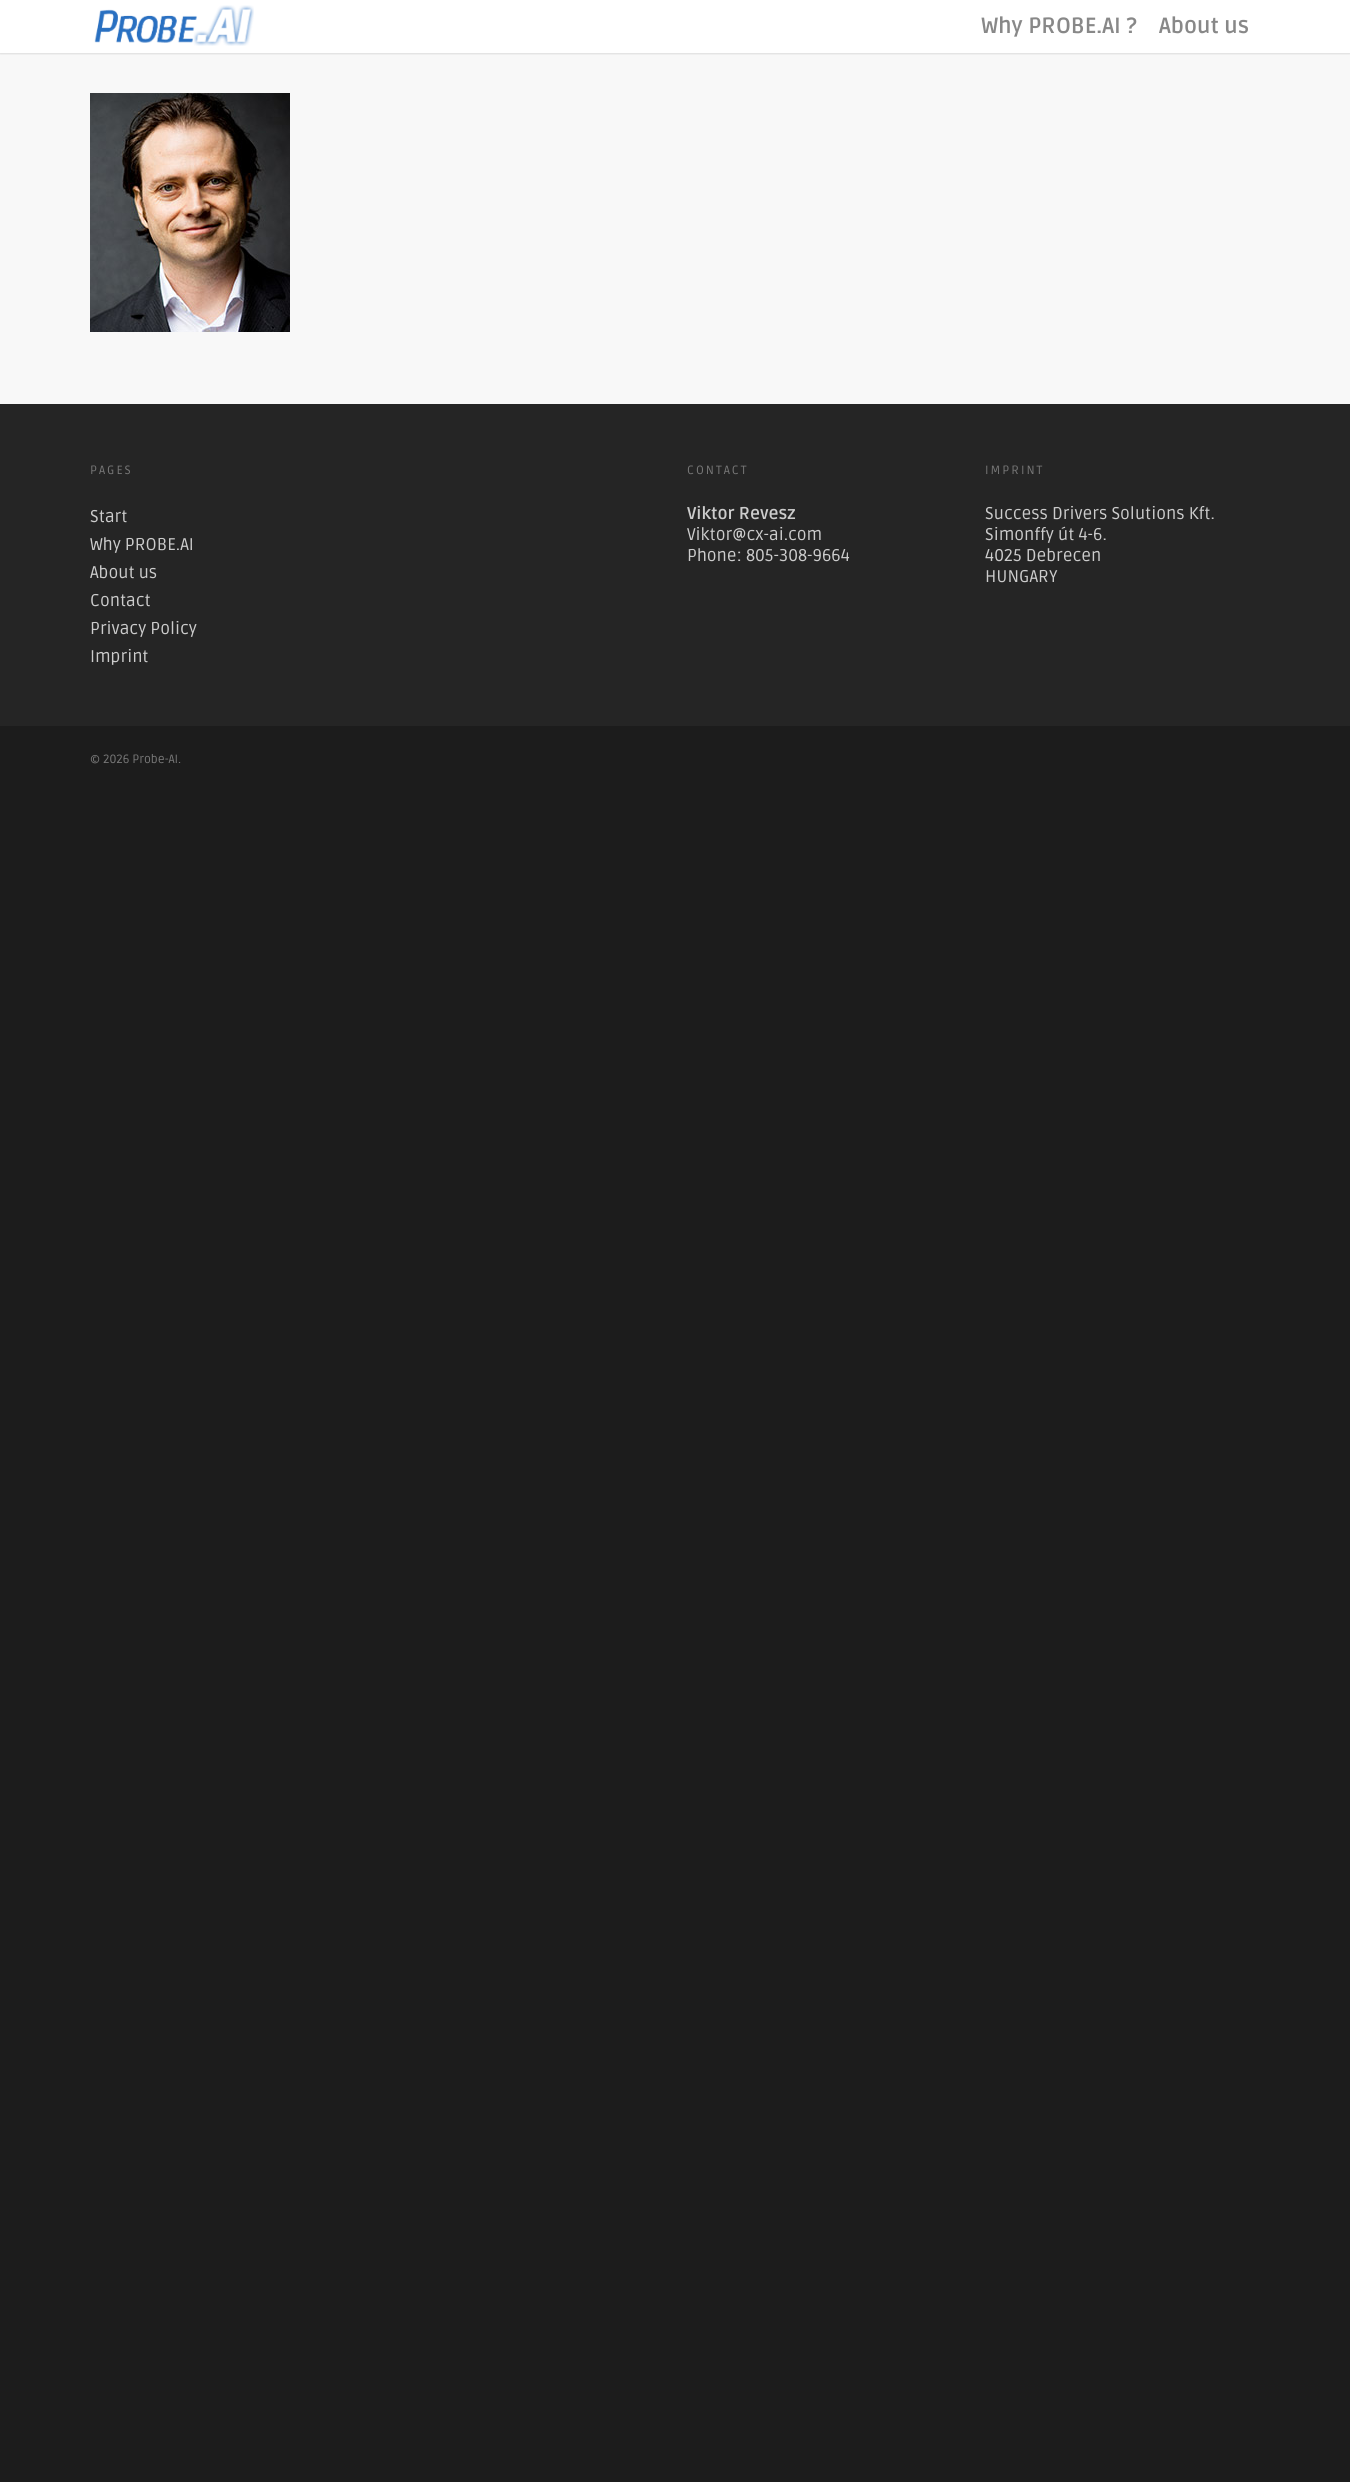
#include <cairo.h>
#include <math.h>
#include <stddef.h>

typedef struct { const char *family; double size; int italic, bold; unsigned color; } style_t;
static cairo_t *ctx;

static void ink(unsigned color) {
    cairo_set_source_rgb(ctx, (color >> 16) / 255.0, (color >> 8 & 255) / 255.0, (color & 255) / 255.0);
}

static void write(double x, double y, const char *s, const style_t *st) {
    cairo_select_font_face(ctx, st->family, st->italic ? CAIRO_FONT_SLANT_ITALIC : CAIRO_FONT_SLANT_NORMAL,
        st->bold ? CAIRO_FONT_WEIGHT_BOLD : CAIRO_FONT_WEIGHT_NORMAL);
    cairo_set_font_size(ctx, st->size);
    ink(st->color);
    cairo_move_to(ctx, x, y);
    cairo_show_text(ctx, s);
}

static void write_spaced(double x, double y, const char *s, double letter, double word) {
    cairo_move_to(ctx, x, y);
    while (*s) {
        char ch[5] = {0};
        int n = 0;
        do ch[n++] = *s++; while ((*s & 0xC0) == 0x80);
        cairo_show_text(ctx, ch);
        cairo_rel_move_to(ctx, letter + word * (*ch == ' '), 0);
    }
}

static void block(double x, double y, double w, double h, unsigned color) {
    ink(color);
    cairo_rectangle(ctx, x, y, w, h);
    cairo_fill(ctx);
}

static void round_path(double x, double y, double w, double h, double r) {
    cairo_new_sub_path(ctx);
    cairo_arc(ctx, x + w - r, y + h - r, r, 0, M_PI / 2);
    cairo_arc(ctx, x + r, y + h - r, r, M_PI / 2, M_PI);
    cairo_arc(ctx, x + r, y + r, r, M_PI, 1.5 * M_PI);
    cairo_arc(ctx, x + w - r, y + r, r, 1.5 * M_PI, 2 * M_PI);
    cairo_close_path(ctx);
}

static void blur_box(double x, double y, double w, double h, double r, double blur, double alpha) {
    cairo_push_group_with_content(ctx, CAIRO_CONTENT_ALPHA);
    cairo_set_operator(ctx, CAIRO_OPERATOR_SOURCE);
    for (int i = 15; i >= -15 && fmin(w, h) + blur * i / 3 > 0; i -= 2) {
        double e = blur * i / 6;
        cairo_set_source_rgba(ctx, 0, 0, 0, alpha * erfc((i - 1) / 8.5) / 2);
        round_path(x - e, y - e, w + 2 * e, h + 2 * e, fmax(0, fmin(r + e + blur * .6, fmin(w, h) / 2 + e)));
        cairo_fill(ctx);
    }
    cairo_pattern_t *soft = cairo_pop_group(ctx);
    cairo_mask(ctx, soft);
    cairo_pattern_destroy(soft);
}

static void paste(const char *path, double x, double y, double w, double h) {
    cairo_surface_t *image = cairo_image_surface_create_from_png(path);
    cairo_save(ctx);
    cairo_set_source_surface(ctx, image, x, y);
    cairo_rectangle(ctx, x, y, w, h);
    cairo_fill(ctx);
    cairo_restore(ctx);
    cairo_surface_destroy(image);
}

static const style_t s1 = {"Ruda", 22, 0, 1, 0x888888};
static const style_t s2 = {"Ruda", 17, 0, 0, 0xcccccc};
static const style_t s3 = {"Ruda", 17, 0, 1, 0xcccccc};
static const style_t s4 = {"Ruda", 12, 0, 0, 0x777777};

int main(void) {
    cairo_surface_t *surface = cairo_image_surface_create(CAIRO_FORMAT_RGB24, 1350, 2482);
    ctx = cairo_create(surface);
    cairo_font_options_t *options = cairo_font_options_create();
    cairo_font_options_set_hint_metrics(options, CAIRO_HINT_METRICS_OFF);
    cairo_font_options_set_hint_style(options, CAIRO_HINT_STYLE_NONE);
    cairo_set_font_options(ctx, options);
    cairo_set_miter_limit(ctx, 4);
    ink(0x1c1c1c);
    cairo_paint(ctx);
    block(0, 0, 1350, 53, 0xffffff);
    block(0, 53, 1350, 351, 0xf8f8f8);
    cairo_save(ctx);
    cairo_rectangle(ctx, 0, 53, 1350, 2);
    cairo_clip(ctx);
    ink(0x000000);
    blur_box(0, 0, 1350, 53, 0, 1.5, 0.22);
    cairo_restore(ctx);
    paste("pic1.png", 94, 5, 160, 41);
    write(981, 33, "Why PROBE.AI ?", &s1);
    write(1159, 33, "About us", &s1);
    paste("pic2.png", 90, 93, 200, 239);
    block(0, 404, 1350, 322, 0x252525);
    cairo_select_font_face(ctx, "Ruda", CAIRO_FONT_SLANT_NORMAL, CAIRO_FONT_WEIGHT_NORMAL);
    cairo_set_font_size(ctx, 12);
    ink(0x777777);
    write_spaced(90, 474, "PAGES", 2, 0);
    write(90, 522, "Start", &s2);
    write(90, 550, "Why PROBE.AI", &s2);
    write(90, 578, "About us", &s2);
    write(90, 606, "Contact", &s2);
    write(90, 634, "Privacy Policy", &s2);
    write(90, 662, "Imprint", &s2);
    cairo_set_font_size(ctx, 12);
    ink(0x777777);
    write_spaced(687, 474, "CONTACT", 2, 0);
    write(687, 519, "Viktor Revesz", &s3);
    write(687, 540, "Viktor@cx-ai.com", &s2);
    write(687, 561, "Phone: 805-308-9664", &s2);
    cairo_set_font_size(ctx, 12);
    ink(0x777777);
    write_spaced(985, 474, "IMPRINT", 2, 0);
    write(985, 519, "Success Drivers Solutions Kft.", &s2);
    write(985, 540, "Simonffy út 4-6.", &s2);
    write(985, 561, "4025 Debrecen", &s2);
    write(985, 582, "HUNGARY", &s2);
    write(90, 763, "© 2026 Probe-AI.", &s4);
    cairo_surface_write_to_png(surface, "screenshot.png");
    cairo_font_options_destroy(options);
    cairo_destroy(ctx);
    cairo_surface_destroy(surface);
    return 0;
}
